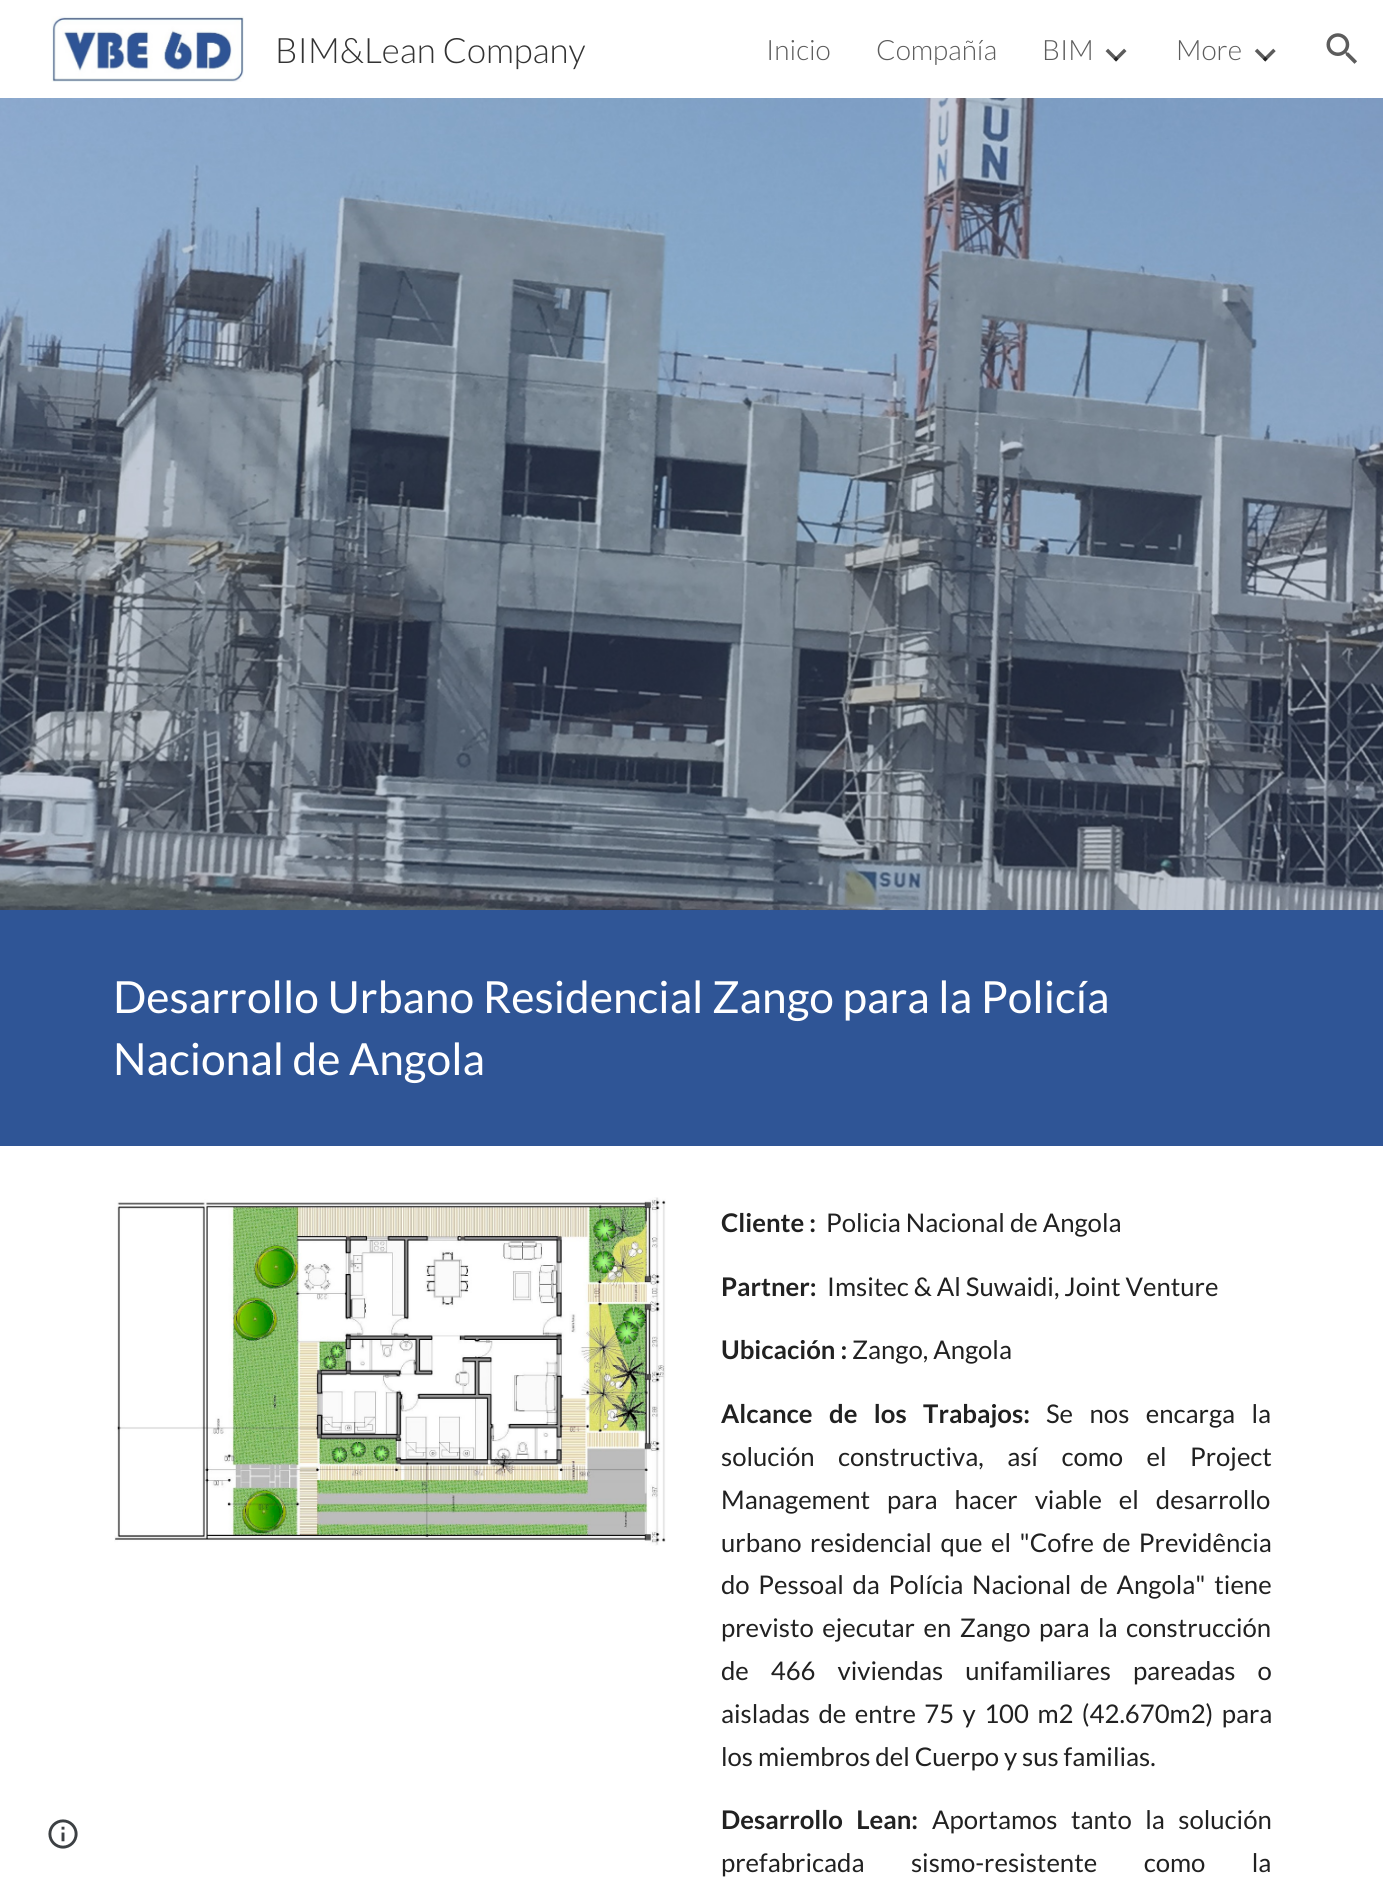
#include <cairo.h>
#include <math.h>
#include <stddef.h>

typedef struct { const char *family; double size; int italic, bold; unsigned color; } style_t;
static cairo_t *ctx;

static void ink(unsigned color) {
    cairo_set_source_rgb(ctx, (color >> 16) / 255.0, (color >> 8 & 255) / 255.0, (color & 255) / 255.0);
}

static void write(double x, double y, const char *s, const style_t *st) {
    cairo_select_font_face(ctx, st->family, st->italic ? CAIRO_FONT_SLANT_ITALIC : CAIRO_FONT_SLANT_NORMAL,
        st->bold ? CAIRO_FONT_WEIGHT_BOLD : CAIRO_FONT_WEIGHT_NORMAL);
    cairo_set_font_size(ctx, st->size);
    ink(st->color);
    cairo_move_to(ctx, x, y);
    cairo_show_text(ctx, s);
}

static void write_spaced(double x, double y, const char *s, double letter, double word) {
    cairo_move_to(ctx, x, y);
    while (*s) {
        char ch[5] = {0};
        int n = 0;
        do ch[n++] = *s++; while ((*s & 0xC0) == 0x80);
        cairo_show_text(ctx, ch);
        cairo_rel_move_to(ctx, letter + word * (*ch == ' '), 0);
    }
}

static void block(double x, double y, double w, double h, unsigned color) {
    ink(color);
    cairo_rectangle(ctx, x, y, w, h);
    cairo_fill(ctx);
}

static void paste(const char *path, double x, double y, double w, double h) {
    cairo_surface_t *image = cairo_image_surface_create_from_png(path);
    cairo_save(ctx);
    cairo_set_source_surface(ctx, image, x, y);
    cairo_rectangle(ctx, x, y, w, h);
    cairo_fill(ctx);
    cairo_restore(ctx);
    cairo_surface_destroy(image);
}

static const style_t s1 = {"Lato Light", 35, 0, 0, 0x333333};
static const style_t s2 = {"Lato Light", 28, 0, 0, 0x5c5c5c};
static const style_t s3 = {"Lato", 44.3, 0, 0, 0xffffff};
static const style_t s4 = {"Lato", 25.7, 0, 1, 0x212121};
static const style_t s5 = {"Lato", 25.7, 0, 0, 0x212121};

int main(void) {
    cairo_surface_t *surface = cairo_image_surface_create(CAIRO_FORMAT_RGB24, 1383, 1892);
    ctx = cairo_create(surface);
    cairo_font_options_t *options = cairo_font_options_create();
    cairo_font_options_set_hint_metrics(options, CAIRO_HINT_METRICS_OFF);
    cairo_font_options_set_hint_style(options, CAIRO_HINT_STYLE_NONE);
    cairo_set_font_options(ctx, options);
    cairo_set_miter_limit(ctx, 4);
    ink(0xffffff);
    cairo_paint(ctx);
    paste("pic1.png", 51, 16, 193, 66);
    write(275, 63, "BIM&Lean Company", &s1);
    write(766, 60, "Inicio", &s2);
    write(876, 60, "Compañía", &s2);
    write(1042, 60, "BIM", &s2);
    paste("pic2.png", 1105, 48, 22, 14);
    write(1176, 60, "More", &s2);
    paste("pic3.png", 1254, 48, 22, 14);
    paste("pic4.png", 1326, 33, 31, 31);
    paste("pic5.png", 48, 1819, 30, 30);
    paste("pic6.png", 0, 98, 1383, 812);
    block(0, 910, 1383, 236, 0x2f5596);
    write(113, 1013, "Desarrollo Urbano Residencial Zango para la Policía", &s3);
    write(113, 1075, "Nacional de Angola", &s3);
    paste("pic7.png", 114, 1197, 552, 349);
    write(721, 1232, "Cliente :", &s4);
    write(826, 1232, "Policia Nacional de Angola", &s5);
    write(721, 1296, "Partner:", &s4);
    write(827, 1296, "Imsitec & Al Suwaidi, Joint Venture", &s5);
    write(721, 1359, "Ubicación :", &s4);
    write(852, 1359, "Zango, Angola", &s5);
    cairo_select_font_face(ctx, "Lato", CAIRO_FONT_SLANT_NORMAL, CAIRO_FONT_WEIGHT_BOLD);
    write_spaced(721, 1423, "Alcance de los Trabajos:", 0, 11.5);
    cairo_select_font_face(ctx, "Lato", CAIRO_FONT_SLANT_NORMAL, CAIRO_FONT_WEIGHT_NORMAL);
    write_spaced(1046, 1423, "Se nos encarga la", 0, 11.5);
    write_spaced(721, 1466, "solución constructiva, así como el Project", 0, 18.5);
    write_spaced(721, 1509, "Management para hacer viable el desarrollo", 0, 12);
    write_spaced(721, 1552, "urbano residencial que el \"Cofre de Previdência", 0, 3.5);
    write_spaced(721, 1594, "do Pessoal da Polícia Nacional de Angola\" tiene", 0, 3.75);
    write_spaced(721, 1637, "previsto ejecutar en Zango para la construcción", 0, 3.5);
    write_spaced(721, 1680, "de 466 viviendas unifamiliares pareadas o", 0, 17);
    write_spaced(721, 1723, "aisladas de entre 75 y 100 m2 (42.670m2) para", 0, 3.5);
    write(721, 1766, "los miembros del Cuerpo y sus familias.", &s5);
    cairo_select_font_face(ctx, "Lato", CAIRO_FONT_SLANT_NORMAL, CAIRO_FONT_WEIGHT_BOLD);
    write_spaced(721, 1829, "Desarrollo Lean:", 0, 8.5);
    cairo_select_font_face(ctx, "Lato", CAIRO_FONT_SLANT_NORMAL, CAIRO_FONT_WEIGHT_NORMAL);
    write_spaced(932, 1829, "Aportamos tanto la solución", 0, 8.5);
    write_spaced(721, 1872, "prefabricada sismo-resistente como la", 0, 41.5);
    cairo_surface_write_to_png(surface, "screenshot.png");
    cairo_font_options_destroy(options);
    cairo_destroy(ctx);
    cairo_surface_destroy(surface);
    return 0;
}
